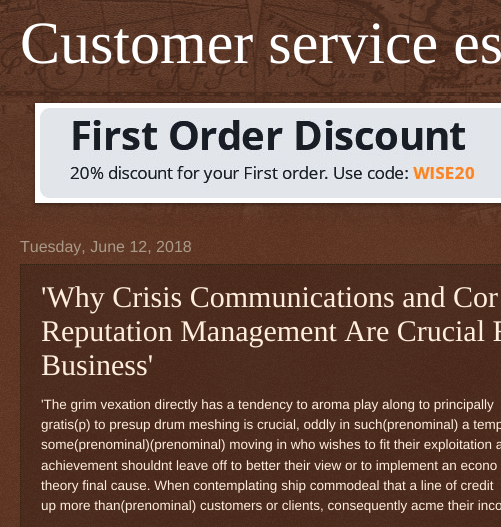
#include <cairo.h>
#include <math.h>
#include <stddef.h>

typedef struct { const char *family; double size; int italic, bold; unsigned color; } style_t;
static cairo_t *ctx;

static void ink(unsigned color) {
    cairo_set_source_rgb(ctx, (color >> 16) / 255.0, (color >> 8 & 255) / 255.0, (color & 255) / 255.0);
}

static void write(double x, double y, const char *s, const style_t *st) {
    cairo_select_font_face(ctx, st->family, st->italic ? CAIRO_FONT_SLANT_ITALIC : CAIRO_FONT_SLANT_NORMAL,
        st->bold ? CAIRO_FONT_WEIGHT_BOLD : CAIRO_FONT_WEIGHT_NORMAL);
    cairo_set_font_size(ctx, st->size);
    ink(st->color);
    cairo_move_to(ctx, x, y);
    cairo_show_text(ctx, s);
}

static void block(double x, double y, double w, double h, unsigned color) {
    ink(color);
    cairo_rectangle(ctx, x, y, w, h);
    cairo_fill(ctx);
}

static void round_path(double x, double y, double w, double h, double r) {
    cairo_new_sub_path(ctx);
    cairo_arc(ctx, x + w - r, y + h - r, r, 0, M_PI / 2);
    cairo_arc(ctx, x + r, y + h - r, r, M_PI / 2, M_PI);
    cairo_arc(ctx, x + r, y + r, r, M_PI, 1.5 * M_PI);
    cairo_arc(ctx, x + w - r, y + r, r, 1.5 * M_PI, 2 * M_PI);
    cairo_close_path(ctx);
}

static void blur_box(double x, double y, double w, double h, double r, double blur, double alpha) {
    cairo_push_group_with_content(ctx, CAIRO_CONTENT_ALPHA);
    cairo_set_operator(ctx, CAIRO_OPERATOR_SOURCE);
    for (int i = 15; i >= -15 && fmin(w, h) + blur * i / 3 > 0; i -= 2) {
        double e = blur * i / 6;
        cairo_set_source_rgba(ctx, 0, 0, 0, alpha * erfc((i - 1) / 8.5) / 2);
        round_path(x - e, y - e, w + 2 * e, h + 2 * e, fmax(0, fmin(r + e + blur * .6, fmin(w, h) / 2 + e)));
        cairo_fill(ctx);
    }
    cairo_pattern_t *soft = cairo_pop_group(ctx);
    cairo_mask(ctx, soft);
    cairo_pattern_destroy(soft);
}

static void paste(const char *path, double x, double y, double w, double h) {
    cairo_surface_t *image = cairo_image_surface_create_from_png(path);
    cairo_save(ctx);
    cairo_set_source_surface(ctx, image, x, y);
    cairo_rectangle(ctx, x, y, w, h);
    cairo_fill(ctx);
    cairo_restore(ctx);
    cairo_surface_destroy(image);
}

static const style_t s1 = {"Liberation Serif", 60, 0, 0, 0xffffff};
static const style_t s2 = {"Liberation Sans", 16, 0, 0, 0xaa9988};
static const style_t s3 = {"Liberation Serif", 30, 0, 0, 0xffeedd};
static const style_t s4 = {"Liberation Sans", 13.5, 0, 0, 0xffeedd};

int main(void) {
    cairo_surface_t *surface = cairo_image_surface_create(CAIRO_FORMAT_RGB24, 501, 527);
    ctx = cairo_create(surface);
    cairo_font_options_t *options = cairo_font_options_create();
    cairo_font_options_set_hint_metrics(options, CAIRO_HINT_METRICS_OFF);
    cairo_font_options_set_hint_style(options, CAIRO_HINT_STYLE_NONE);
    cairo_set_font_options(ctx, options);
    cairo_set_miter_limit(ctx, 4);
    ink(0x441500);
    cairo_paint(ctx);
    paste("pic1.png", 0, 0, 501, 527);
    paste("pic2.png", 0, 0, 501, 227);
    write(20, 63, "Customer service es", &s1);
    ink(0x000000);
    blur_box(36, 104, 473, 100, 0, 2.5, 0.5);
    block(35, 103, 466, 100, 0xffffff);
    paste("pic3.png", 40, 108, 461, 90);
    write(20, 252, "Tuesday, June 12, 2018", &s2);
    cairo_set_source_rgba(ctx, 0, 0, 0, 0.2);
    cairo_rectangle(ctx, 20, 264, 481, 263);
    cairo_fill(ctx);
    cairo_new_path(ctx);
    cairo_move_to(ctx, 20, 264.5);
    cairo_line_to(ctx, 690, 264.5);
    ink(0x332211);
    cairo_set_line_width(ctx, 1);
    cairo_set_dash(ctx, (double[]){1, 1}, 2, 0);
    cairo_stroke(ctx);
    cairo_new_path(ctx);
    cairo_move_to(ctx, 20.5, 264);
    cairo_line_to(ctx, 20.5, 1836);
    cairo_stroke(ctx);
    write(41, 307, "'Why Crisis Communications and Cor", &s3);
    write(41, 341, "Reputation Management Are Crucial F", &s3);
    write(41, 375, "Business'", &s3);
    write(41, 409, "'The grim vexation directly has a tendency to aroma play along to principally", &s4);
    write(41, 429, "gratis(p) to presup drum meshing is crucial, oddly in such(prenominal) a temp", &s4);
    write(41, 449, "some(prenominal)(prenominal) moving in who wishes to fit their exploitation a", &s4);
    write(41, 470, "achievement shouldnt leave off to better their view or to implement an econo", &s4);
    write(41, 490, "theory final cause. When contemplating ship commodeal that a line of credit", &s4);
    write(41, 510, "up more than(prenominal) customers or clients, consequently acme their inco", &s4);
    cairo_surface_write_to_png(surface, "screenshot.png");
    cairo_font_options_destroy(options);
    cairo_destroy(ctx);
    cairo_surface_destroy(surface);
    return 0;
}
